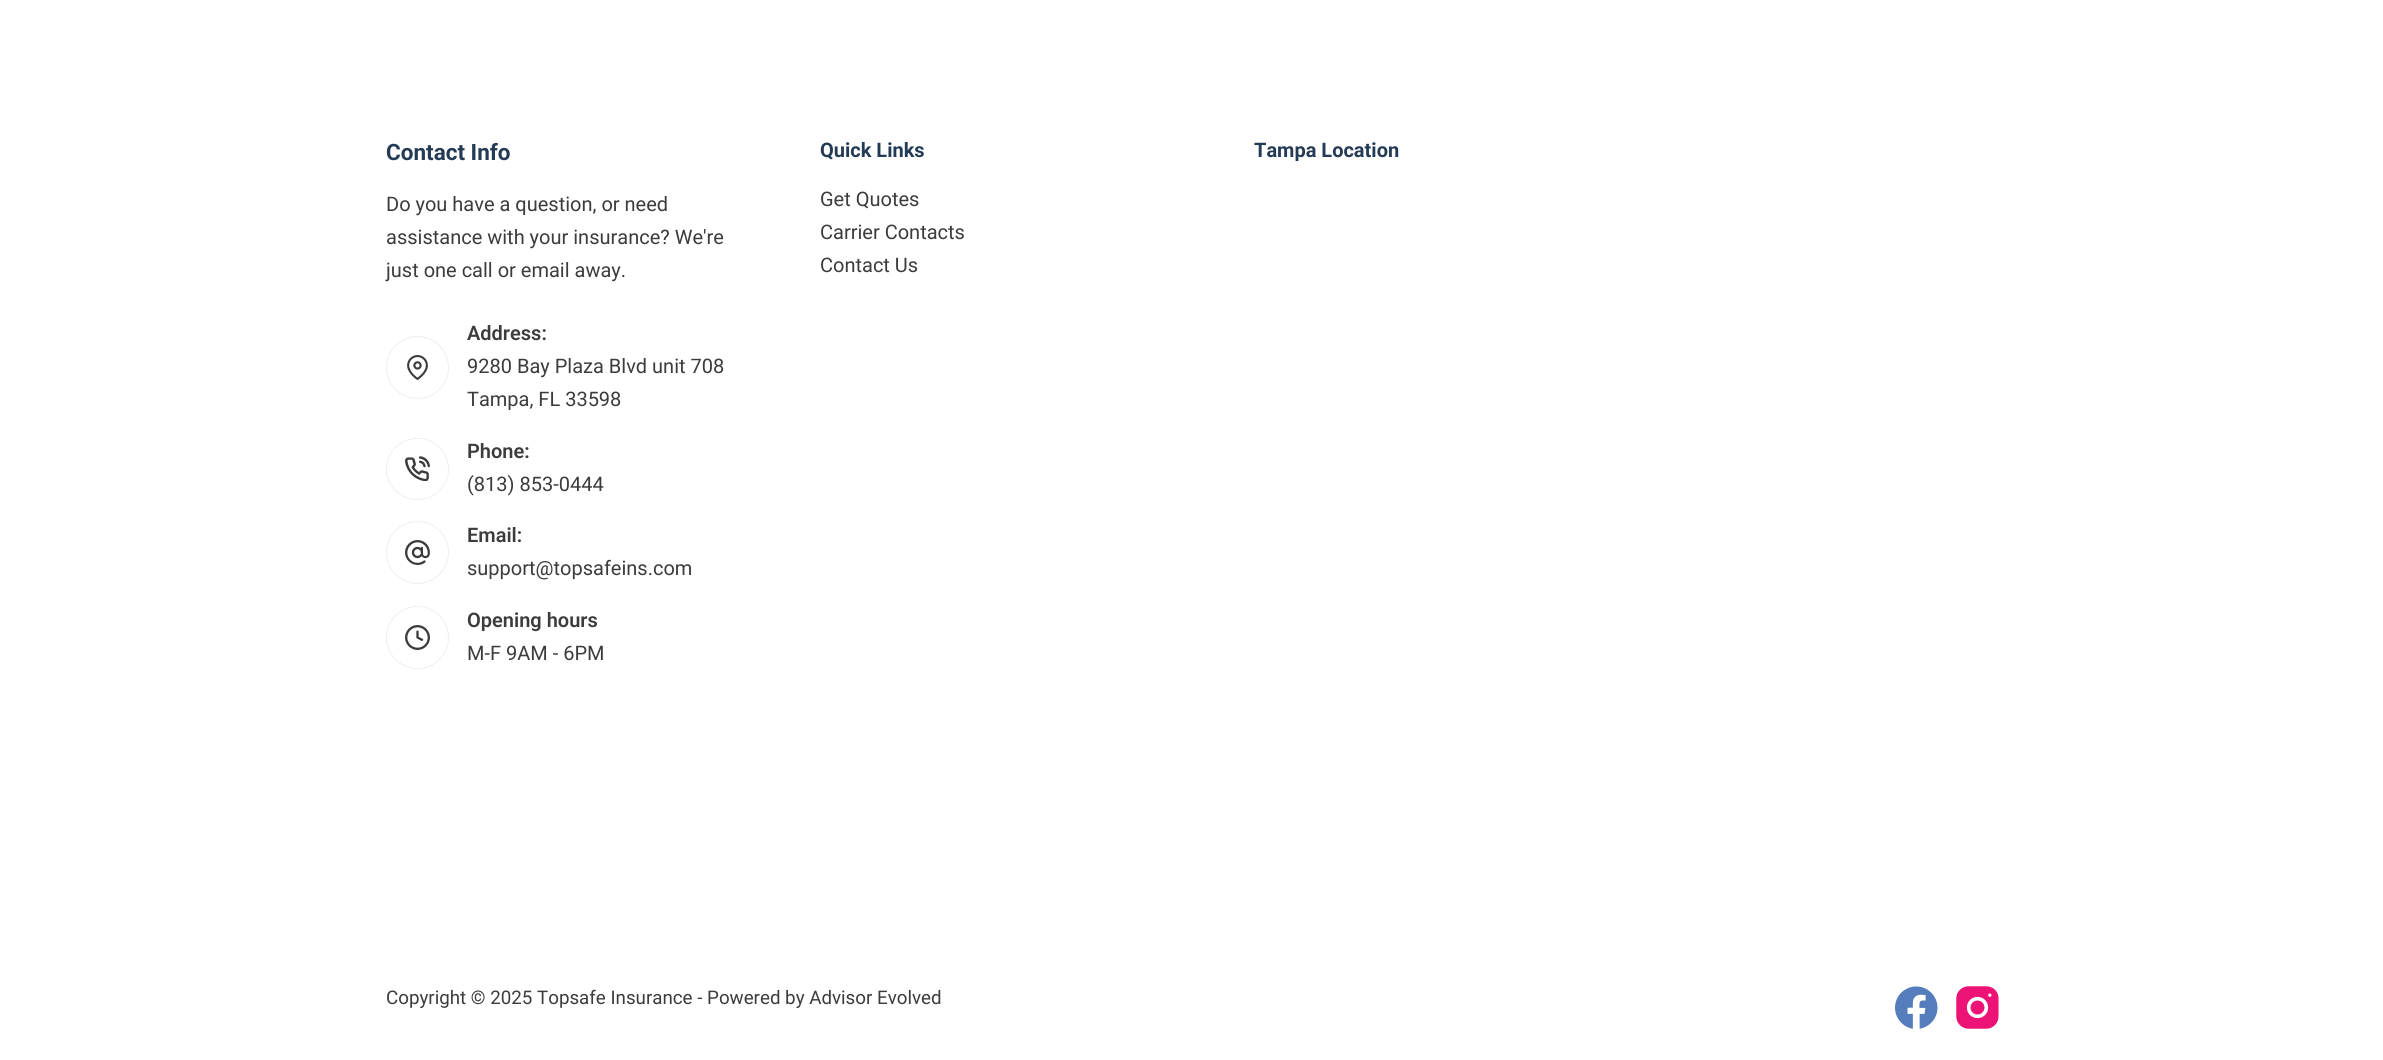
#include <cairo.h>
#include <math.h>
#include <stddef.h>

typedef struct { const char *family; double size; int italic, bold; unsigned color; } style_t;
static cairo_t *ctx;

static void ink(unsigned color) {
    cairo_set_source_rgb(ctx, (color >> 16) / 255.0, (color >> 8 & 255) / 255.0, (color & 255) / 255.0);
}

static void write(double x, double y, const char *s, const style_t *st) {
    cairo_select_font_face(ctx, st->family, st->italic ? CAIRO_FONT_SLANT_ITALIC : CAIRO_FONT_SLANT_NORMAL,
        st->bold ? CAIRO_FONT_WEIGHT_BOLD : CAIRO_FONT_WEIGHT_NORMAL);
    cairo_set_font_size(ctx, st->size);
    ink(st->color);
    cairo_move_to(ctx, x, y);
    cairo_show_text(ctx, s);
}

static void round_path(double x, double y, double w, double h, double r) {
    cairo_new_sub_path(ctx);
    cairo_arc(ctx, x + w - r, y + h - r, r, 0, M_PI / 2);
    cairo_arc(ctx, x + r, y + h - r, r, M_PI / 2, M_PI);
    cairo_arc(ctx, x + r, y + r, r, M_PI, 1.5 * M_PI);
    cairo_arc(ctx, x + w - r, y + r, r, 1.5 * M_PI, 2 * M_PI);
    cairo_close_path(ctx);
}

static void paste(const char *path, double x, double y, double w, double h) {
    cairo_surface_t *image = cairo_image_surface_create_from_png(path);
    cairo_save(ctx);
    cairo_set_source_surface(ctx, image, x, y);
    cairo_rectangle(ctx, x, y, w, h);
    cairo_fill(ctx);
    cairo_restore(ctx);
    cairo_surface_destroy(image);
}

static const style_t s1 = {"Roboto", 22.5, 0, 1, 0x243b56};
static const style_t s2 = {"Roboto", 20, 0, 0, 0x3c3c3c};
static const style_t s3 = {"Roboto SemiBold", 20, 0, 0, 0x3c3c3c};
static const style_t s4 = {"Roboto", 20, 0, 1, 0x243b56};
static const style_t s5 = {"Roboto", 18.75, 0, 0, 0x3c3c3c};

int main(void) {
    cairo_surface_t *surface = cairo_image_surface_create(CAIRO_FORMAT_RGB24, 2383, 1060);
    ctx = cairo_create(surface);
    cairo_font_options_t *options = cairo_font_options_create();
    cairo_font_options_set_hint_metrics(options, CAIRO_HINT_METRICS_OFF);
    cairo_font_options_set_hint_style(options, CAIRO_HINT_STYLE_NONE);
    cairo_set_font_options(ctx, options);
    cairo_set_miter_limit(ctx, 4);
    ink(0xffffff);
    cairo_paint(ctx);
    write(386, 160, "Contact Info", &s1);
    write(386, 211, "Do you have a question, or need", &s2);
    write(386, 244, "assistance with your insurance? We're", &s2);
    write(386, 277, "just one call or email away.", &s2);
    cairo_new_path(ctx);
    cairo_arc(ctx, 417.5, 367.5, 31, 0, 2 * M_PI);
    ink(0xedeff2);
    cairo_set_line_width(ctx, 1);
    cairo_stroke(ctx);
    paste("pic1.png", 407, 355, 21, 25);
    write(467, 340, "Address:", &s3);
    write(467, 373, "9280 Bay Plaza Blvd unit 708", &s2);
    write(467, 406, "Tampa, FL 33598", &s2);
    round_path(386.5, 438.5, 62, 61, 30.5);
    ink(0xedeff2);
    cairo_stroke(ctx);
    paste("pic2.png", 405, 456, 25, 25);
    write(467, 458, "Phone:", &s3);
    write(467, 491, "(813) 853-0444", &s2);
    cairo_new_path(ctx);
    cairo_arc(ctx, 417.5, 552.5, 31, 0, 2 * M_PI);
    ink(0xedeff2);
    cairo_stroke(ctx);
    paste("pic3.png", 405, 540, 25, 25);
    write(467, 542, "Email:", &s3);
    write(467, 575, "support@topsafeins.com", &s2);
    cairo_new_path(ctx);
    cairo_arc(ctx, 417.5, 637.5, 31, 0, 2 * M_PI);
    ink(0xedeff2);
    cairo_stroke(ctx);
    paste("pic4.png", 405, 625, 25, 25);
    write(467, 627, "Opening hours", &s3);
    write(467, 660, "M-F 9AM - 6PM", &s2);
    write(820, 157, "Quick Links", &s4);
    write(820, 206, "Get Quotes", &s2);
    write(820, 239, "Carrier Contacts", &s2);
    write(820, 272, "Contact Us", &s2);
    write(1254, 157, "Tampa Location", &s4);
    write(386, 1004, "Copyright © 2025 Topsafe Insurance - Powered by Advisor Evolved", &s5);
    paste("pic5.png", 1895, 986, 43, 43);
    paste("pic6.png", 1956, 986, 43, 43);
    cairo_surface_write_to_png(surface, "screenshot.png");
    cairo_font_options_destroy(options);
    cairo_destroy(ctx);
    cairo_surface_destroy(surface);
    return 0;
}
